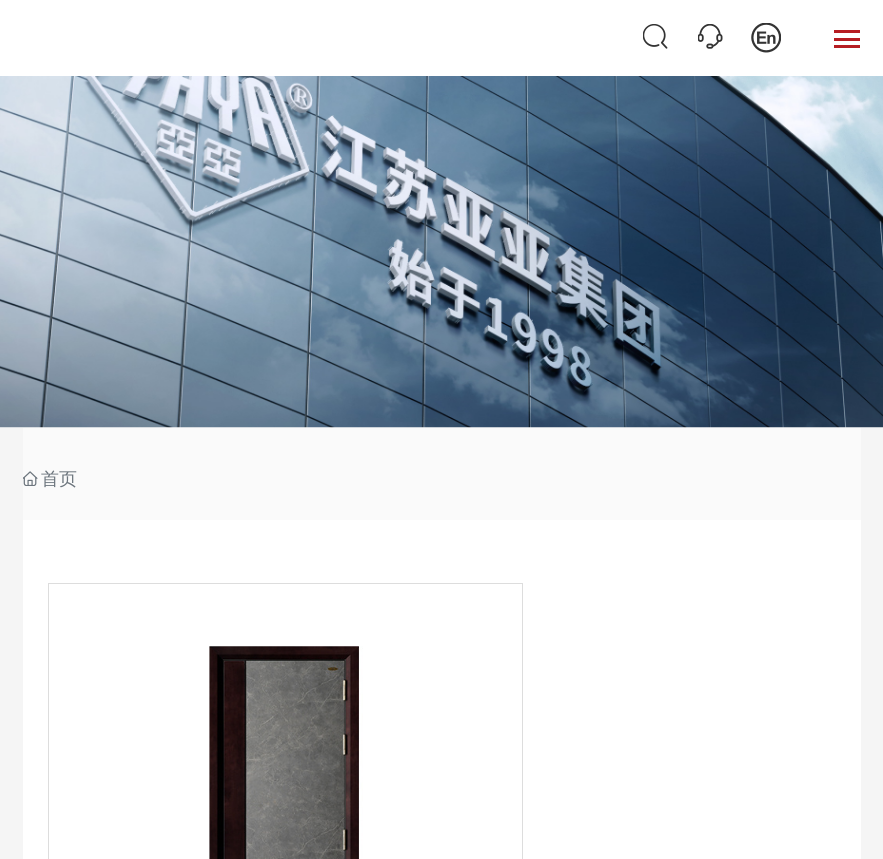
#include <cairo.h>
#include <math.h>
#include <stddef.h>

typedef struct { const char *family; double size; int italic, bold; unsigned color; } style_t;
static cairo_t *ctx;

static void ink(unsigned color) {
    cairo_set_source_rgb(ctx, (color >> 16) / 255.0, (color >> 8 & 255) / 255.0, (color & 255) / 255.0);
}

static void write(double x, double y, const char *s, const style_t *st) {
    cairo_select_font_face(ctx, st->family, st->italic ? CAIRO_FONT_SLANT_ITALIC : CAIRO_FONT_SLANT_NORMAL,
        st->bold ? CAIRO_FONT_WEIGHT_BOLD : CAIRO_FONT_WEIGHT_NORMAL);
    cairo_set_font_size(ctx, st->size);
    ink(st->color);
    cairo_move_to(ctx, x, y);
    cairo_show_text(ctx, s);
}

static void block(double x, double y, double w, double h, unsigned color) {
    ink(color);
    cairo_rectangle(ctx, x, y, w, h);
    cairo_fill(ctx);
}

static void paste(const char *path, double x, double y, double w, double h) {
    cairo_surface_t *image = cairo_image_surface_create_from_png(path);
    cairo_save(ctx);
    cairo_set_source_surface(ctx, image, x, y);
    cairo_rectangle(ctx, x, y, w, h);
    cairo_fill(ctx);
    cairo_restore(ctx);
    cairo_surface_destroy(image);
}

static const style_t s1 = {"WenQuanYi Zen Hei Medium", 18, 0, 0, 0x6c757d};

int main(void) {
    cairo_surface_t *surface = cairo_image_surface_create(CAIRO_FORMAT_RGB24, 883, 859);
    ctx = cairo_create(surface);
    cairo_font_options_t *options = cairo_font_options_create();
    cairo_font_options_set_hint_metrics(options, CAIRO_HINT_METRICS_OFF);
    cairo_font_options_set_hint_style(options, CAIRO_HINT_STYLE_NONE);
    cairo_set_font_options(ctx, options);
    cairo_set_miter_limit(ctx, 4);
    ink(0xf9f9f9);
    cairo_paint(ctx);
    block(0, 0, 883, 76, 0xffffff);
    paste("pic1.png", 643, 24, 25, 25);
    paste("pic2.png", 698, 24, 25, 25);
    paste("pic3.png", 751, 23, 30, 30);
    block(834, 30, 26, 3, 0xb61d22);
    block(834, 38, 26, 3, 0xb61d22);
    block(834, 45, 26, 3, 0xb61d22);
    paste("pic4.png", 0, 76, 883, 352);
    block(0, 428, 883, 431, 0xf5f5f5);
    block(23, 428, 838, 92, 0xfafafa);
    paste("pic5.png", 23, 471, 15, 15);
    write(41, 485, "首页", &s1);
    block(23, 520, 838, 339, 0xffffff);
    cairo_rectangle(ctx, 48.5, 583.5, 474, 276);
    ink(0xdddddd);
    cairo_set_line_width(ctx, 1);
    cairo_stroke(ctx);
    paste("pic6.png", 209, 646, 154, 213);
    cairo_surface_write_to_png(surface, "screenshot.png");
    cairo_font_options_destroy(options);
    cairo_destroy(ctx);
    cairo_surface_destroy(surface);
    return 0;
}
